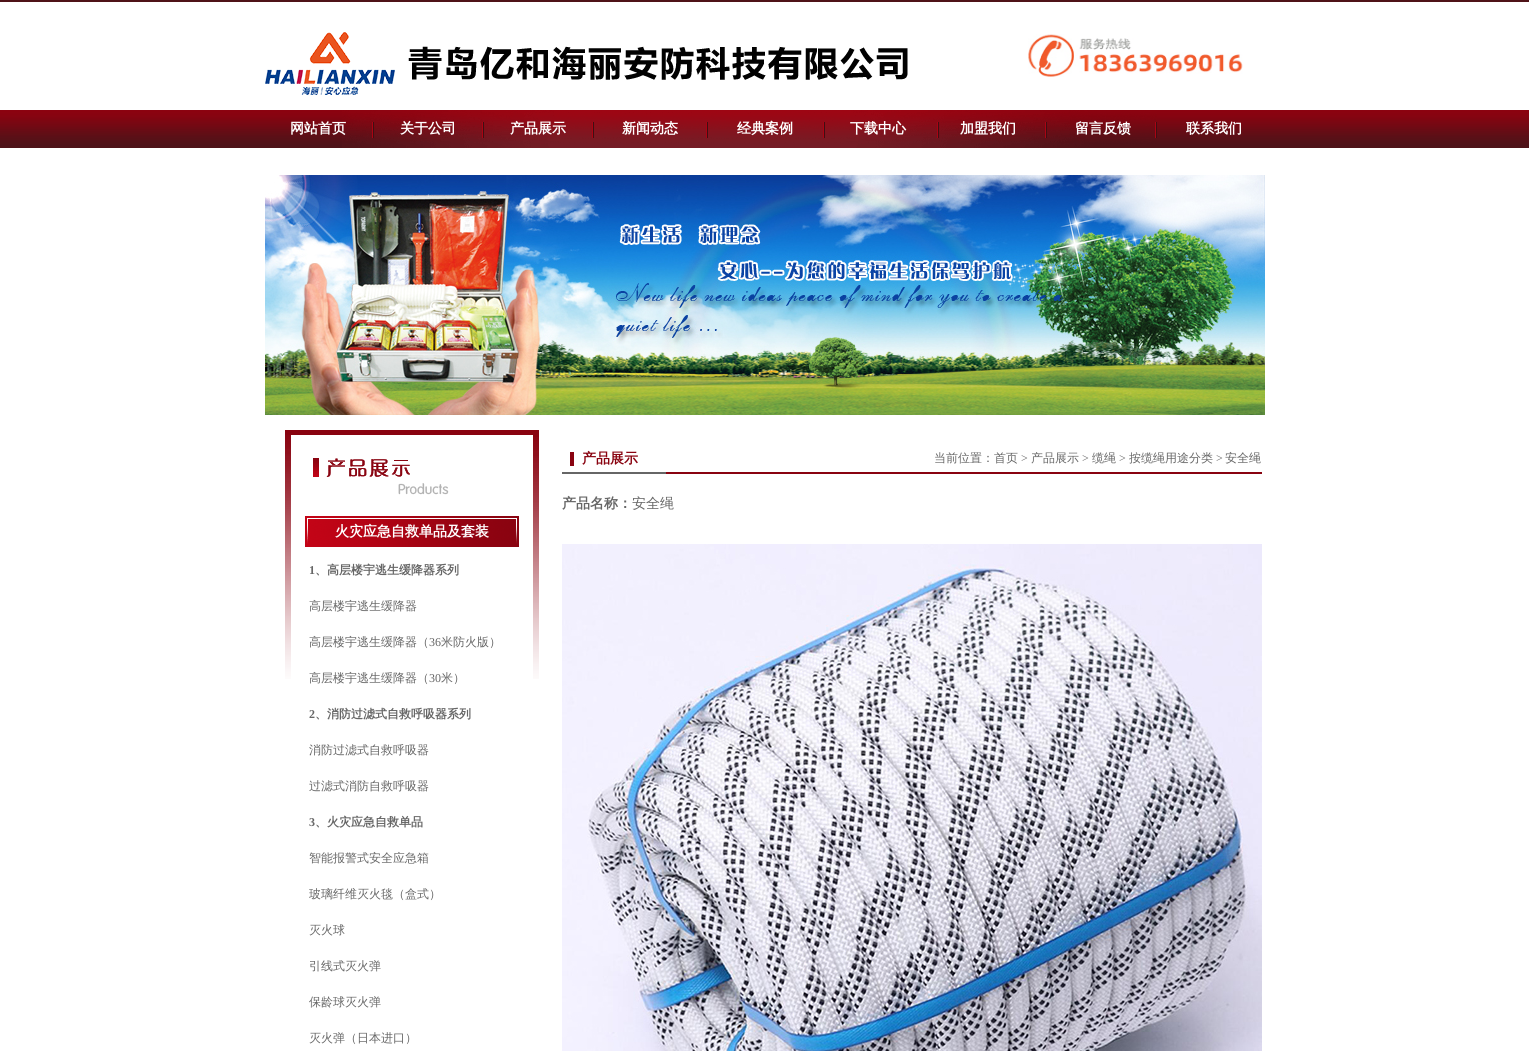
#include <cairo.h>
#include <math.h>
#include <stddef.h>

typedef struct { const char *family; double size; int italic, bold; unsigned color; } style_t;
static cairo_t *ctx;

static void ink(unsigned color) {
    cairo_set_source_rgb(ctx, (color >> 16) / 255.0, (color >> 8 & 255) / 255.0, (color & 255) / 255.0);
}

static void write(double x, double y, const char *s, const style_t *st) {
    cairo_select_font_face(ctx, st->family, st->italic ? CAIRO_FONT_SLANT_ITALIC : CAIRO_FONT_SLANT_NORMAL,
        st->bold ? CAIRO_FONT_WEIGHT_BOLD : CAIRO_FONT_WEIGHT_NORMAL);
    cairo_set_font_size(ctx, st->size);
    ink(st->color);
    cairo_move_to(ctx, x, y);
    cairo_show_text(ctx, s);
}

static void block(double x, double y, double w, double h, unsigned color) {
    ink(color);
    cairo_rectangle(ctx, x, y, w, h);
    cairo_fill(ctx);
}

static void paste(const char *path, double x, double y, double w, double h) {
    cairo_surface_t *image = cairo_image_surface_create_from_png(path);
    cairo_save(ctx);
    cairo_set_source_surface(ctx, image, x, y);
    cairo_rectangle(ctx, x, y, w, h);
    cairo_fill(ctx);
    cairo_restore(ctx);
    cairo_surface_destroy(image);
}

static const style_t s1 = {"WenQuanYi Zen Hei", 14, 0, 1, 0xffffff};
static const style_t s2 = {"WenQuanYi Zen Hei", 14, 0, 1, 0x890310};
static const style_t s3 = {"WenQuanYi Zen Hei Medium", 12, 0, 0, 0x666666};
static const style_t s4 = {"Liberation Serif", 12, 0, 0, 0x666666};
static const style_t s5 = {"WenQuanYi Zen Hei", 14, 0, 1, 0x666666};
static const style_t s6 = {"WenQuanYi Zen Hei Medium", 14, 0, 0, 0x666666};
static const style_t s7 = {"Liberation Serif", 12, 0, 1, 0x666666};
static const style_t s8 = {"WenQuanYi Zen Hei", 12, 0, 1, 0x666666};

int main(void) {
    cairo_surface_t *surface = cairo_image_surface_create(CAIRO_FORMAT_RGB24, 1529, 1051);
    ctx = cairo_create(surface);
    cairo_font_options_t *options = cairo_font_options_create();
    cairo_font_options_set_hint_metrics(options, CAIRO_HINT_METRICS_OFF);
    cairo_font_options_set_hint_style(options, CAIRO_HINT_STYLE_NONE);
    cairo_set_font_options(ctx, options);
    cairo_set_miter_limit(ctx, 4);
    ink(0xffffff);
    cairo_paint(ctx);
    paste("pic1.png", 0, 0, 1529, 148);
    paste("pic2.png", 265, 32, 643, 63);
    paste("pic3.png", 1028, 34, 215, 43);
    paste("pic4.png", 342, 110, 815, 38);
    write(290, 133, "网站首页", &s1);
    write(400, 133, "关于公司", &s1);
    write(510, 133, "产品展示", &s1);
    write(622, 133, "新闻动态", &s1);
    write(737, 133, "经典案例", &s1);
    write(850, 133, "下载中心", &s1);
    write(960, 133, "加盟我们", &s1);
    write(1075, 133, "留言反馈", &s1);
    write(1186, 133, "联系我们", &s1);
    paste("pic5.png", 265, 175, 1000, 240);
    block(570, 452, 4, 14, 0x890310);
    write(582, 463, "产品展示", &s2);
    write(934, 462, "当前位置：首页", &s3);
    write(1021, 462, ">", &s4);
    write(1031, 462, "产品展示", &s3);
    write(1082, 462, ">", &s4);
    write(1092, 462, "缆绳", &s3);
    write(1119, 462, ">", &s4);
    write(1129, 462, "按缆绳用途分类", &s3);
    write(1216, 462, ">", &s4);
    write(1225, 462, "安全绳", &s3);
    block(562, 472, 104, 2, 0x666666);
    block(666, 472, 596, 2, 0x890310);
    write(562, 508, "产品名称：", &s5);
    write(632, 508, "安全绳", &s6);
    paste("pic6.png", 562, 544, 700, 507);
    paste("pic7.png", 285, 430, 254, 249);
    paste("pic8.png", 305, 516, 214, 31);
    write(335, 536, "火灾应急自救单品及套装", &s1);
    write(309, 574, "1", &s7);
    write(315, 574, "、高层楼宇逃生缓降器系列", &s8);
    write(309, 610, "高层楼宇逃生缓降器", &s3);
    write(309, 646, "高层楼宇逃生缓降器（", &s3);
    write(429, 646, "36", &s4);
    write(441, 646, "米防火版）", &s3);
    write(309, 682, "高层楼宇逃生缓降器（", &s3);
    write(429, 682, "30", &s4);
    write(441, 682, "米）", &s3);
    write(309, 718, "2", &s7);
    write(315, 718, "、消防过滤式自救呼吸器系列", &s8);
    write(309, 754, "消防过滤式自救呼吸器", &s3);
    write(309, 790, "过滤式消防自救呼吸器", &s3);
    write(309, 826, "3", &s7);
    write(315, 826, "、火灾应急自救单品", &s8);
    write(309, 862, "智能报警式安全应急箱", &s3);
    write(309, 898, "玻璃纤维灭火毯（盒式）", &s3);
    write(309, 934, "灭火球", &s3);
    write(309, 970, "引线式灭火弹", &s3);
    write(309, 1006, "保龄球灭火弹", &s3);
    write(309, 1042, "灭火弹（日本进口）", &s3);
    cairo_surface_write_to_png(surface, "screenshot.png");
    cairo_font_options_destroy(options);
    cairo_destroy(ctx);
    cairo_surface_destroy(surface);
    return 0;
}
